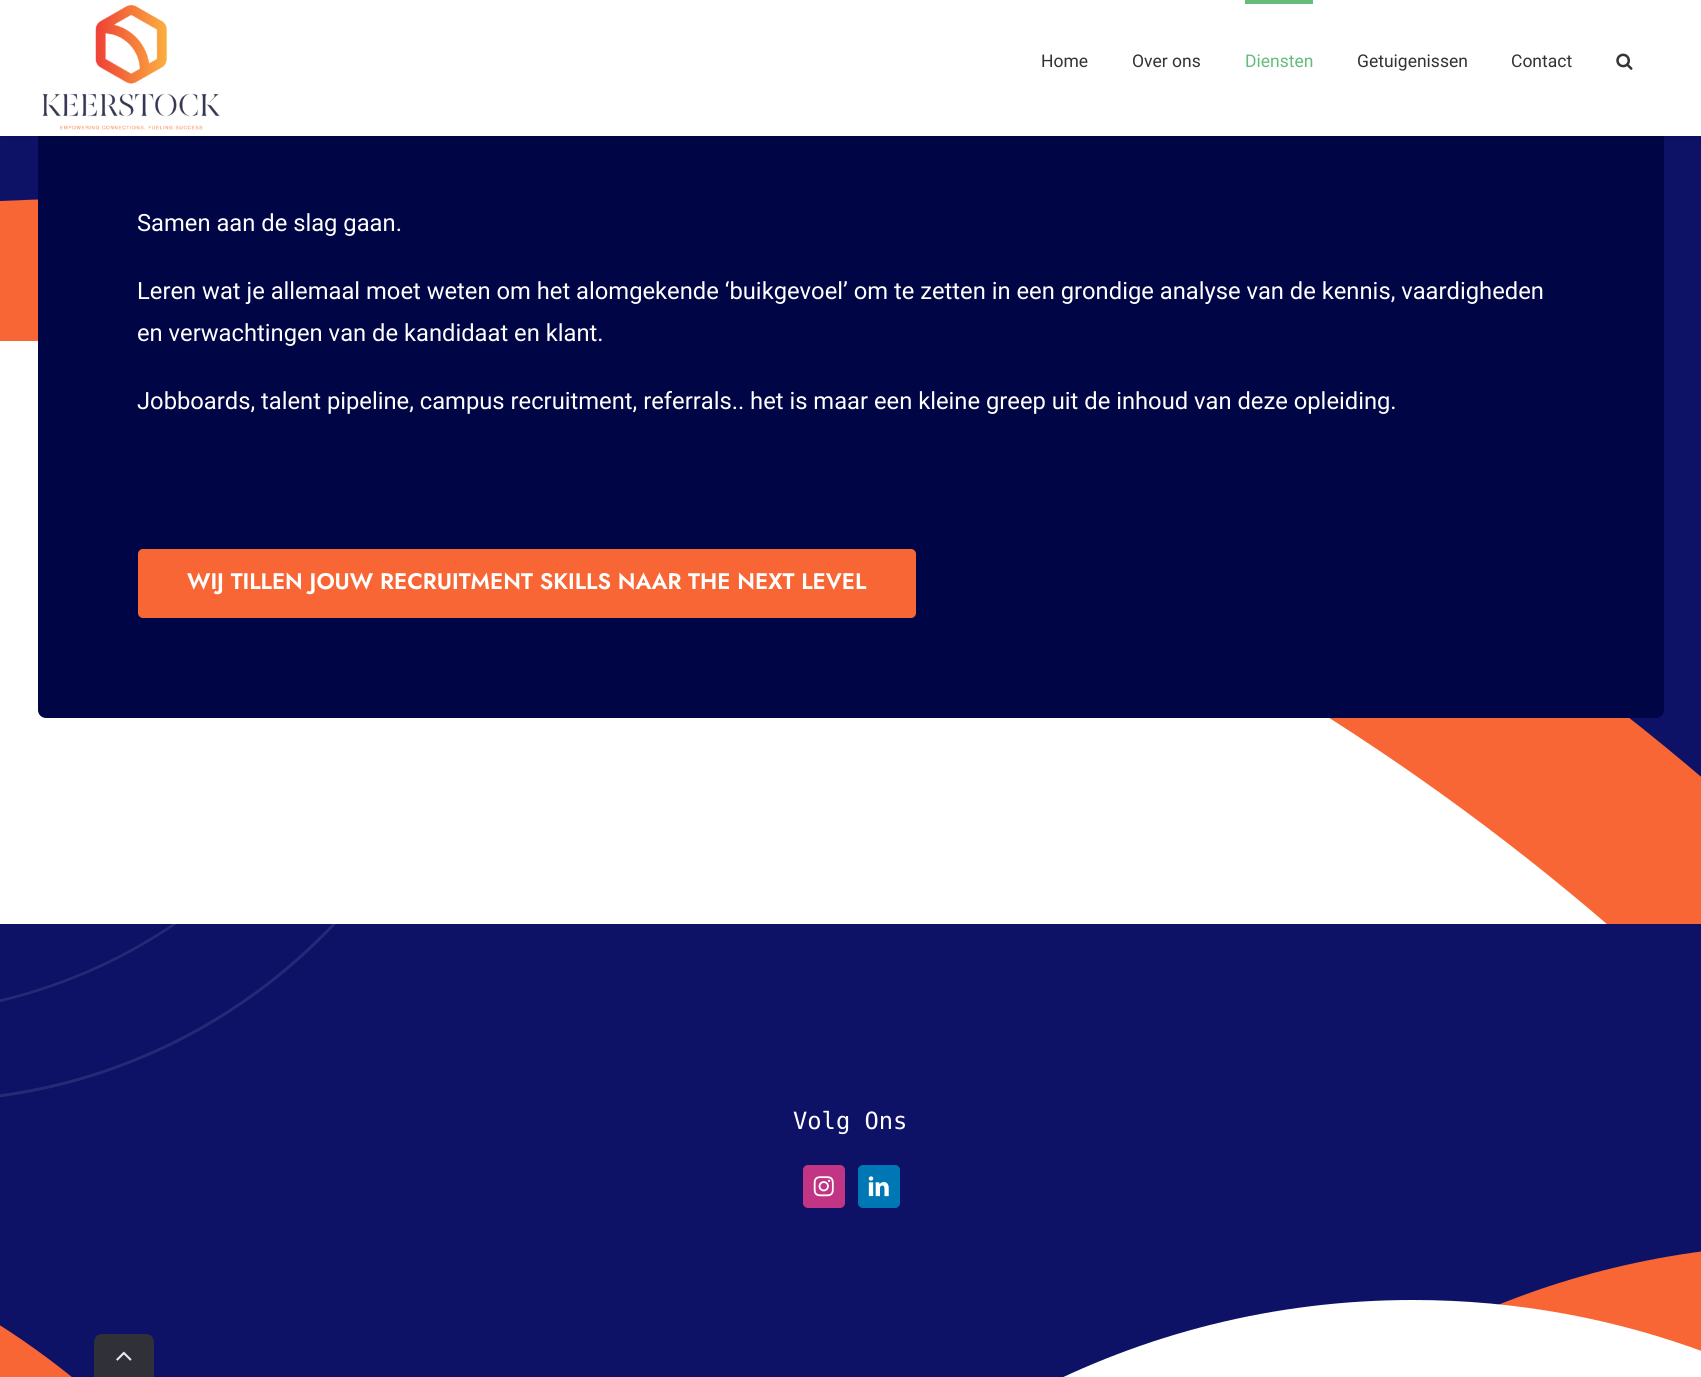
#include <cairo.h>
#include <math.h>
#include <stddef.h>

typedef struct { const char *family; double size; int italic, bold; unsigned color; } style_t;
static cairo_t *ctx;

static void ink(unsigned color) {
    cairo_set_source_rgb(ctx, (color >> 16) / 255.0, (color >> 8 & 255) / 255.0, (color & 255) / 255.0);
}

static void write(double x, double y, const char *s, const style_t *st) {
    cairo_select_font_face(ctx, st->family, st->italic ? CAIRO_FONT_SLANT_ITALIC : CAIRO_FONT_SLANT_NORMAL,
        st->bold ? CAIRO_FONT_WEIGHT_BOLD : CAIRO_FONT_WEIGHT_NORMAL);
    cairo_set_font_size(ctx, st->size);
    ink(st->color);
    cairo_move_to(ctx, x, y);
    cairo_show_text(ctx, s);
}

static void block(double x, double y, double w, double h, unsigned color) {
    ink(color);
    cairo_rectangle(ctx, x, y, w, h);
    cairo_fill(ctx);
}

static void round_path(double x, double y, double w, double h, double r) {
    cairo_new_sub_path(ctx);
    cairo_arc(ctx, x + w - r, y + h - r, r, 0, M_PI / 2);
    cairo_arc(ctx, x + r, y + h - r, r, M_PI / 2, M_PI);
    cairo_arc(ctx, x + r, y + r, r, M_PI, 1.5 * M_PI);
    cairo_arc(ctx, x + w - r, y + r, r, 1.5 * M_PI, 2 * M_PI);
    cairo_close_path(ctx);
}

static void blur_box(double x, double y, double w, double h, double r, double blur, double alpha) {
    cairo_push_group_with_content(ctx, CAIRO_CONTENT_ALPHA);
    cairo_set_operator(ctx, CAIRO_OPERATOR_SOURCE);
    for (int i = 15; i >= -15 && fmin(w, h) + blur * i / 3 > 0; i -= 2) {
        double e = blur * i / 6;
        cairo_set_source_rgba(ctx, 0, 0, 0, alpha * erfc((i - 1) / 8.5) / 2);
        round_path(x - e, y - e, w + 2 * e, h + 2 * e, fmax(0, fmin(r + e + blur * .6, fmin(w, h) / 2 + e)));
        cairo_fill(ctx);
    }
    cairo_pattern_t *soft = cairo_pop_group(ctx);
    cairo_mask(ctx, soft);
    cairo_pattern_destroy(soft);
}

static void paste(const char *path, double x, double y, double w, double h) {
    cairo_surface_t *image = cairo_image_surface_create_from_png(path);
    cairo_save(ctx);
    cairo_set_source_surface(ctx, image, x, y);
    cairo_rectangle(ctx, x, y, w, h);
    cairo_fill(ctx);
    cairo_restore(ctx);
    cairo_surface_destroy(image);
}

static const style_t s1 = {"Roboto", 17.5, 0, 0, 0x333333};
static const style_t s2 = {"Roboto", 17.5, 0, 0, 0x65bc7b};
static const style_t s3 = {"Roboto", 23.75, 0, 0, 0xffffff};
static const style_t s4 = {"Jost SemiBold", 22.5, 0, 0, 0xffffff};
static const style_t s5 = {"DejaVu Sans Mono", 23.75, 0, 0, 0xffffff};

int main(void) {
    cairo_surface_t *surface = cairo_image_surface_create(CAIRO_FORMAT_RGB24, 1701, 1377);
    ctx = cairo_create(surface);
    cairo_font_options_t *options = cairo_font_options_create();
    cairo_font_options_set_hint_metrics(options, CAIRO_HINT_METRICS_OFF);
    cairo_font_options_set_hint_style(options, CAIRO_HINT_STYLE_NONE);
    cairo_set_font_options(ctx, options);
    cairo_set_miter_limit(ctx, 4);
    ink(0x0d1267);
    cairo_paint(ctx);
    ink(0xf86635);
    cairo_new_path(ctx);
    cairo_move_to(ctx, 129, 198);
    cairo_curve_to(ctx, 86, 198, 43, 199, 0, 201);
    cairo_line_to(ctx, 0, 926);
    cairo_line_to(ctx, 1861, 926);
    cairo_curve_to(ctx, 1421, 477, 807, 198, 129, 198);
    cairo_close_path(ctx);
    cairo_fill(ctx);
    ink(0xffffff);
    cairo_new_path(ctx);
    cairo_move_to(ctx, 31, 341);
    cairo_line_to(ctx, -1, 341);
    cairo_line_to(ctx, -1, 925);
    cairo_line_to(ctx, 1608, 925);
    cairo_curve_to(ctx, 1185, 561, 634, 341, 31, 341);
    cairo_close_path(ctx);
    cairo_fill(ctx);
    ink(0x000545);
    round_path(38, -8, 1626, 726, 8);
    cairo_fill(ctx);
    ink(0x000000);
    blur_box(0, 1, 1701, 137, 0, 2, 0.12);
    block(0, 0, 1701, 136, 0xffffff);
    paste("pic1.png", 42, 4, 178, 126);
    write(1041, 67, "Home", &s1);
    write(1132, 67, "Over ons", &s1);
    block(1245, 0, 68, 4, 0x65bc7b);
    write(1245, 67, "Diensten", &s2);
    write(1357, 67, "Getuigenissen", &s1);
    write(1511, 67, "Contact", &s1);
    paste("pic2.png", 1616, 53, 17, 17);
    write(137, 231, "Samen aan de slag gaan.", &s3);
    write(137, 299, "Leren wat je allemaal moet weten om het alomgekende ‘buikgevoel’ om te zetten in een grondige analyse van de kennis, vaardigheden", &s3);
    write(137, 341, "en verwachtingen van de kandidaat en klant.", &s3);
    write(137, 409, "Jobboards, talent pipeline, campus recruitment, referrals.. het is maar een kleine greep uit de inhoud van deze opleiding.", &s3);
    ink(0xf86635);
    round_path(138, 549, 778, 69, 5);
    cairo_fill(ctx);
    write(187, 589, "WIJ TILLEN JOUW RECRUITMENT SKILLS NAAR THE NEXT LEVEL", &s4);
    block(0, 924, 1701, 2, 0x0d1267);
    ink(0xf86635);
    cairo_new_path(ctx);
    cairo_move_to(ctx, 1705, 1251);
    cairo_curve_to(ctx, 1581, 1267, 1466, 1309, 1366, 1373);
    cairo_line_to(ctx, 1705, 1373);
    cairo_close_path(ctx);
    cairo_fill(ctx);
    cairo_new_path(ctx);
    cairo_move_to(ctx, 91, 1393);
    cairo_curve_to(ctx, 62, 1368, 31, 1345, -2, 1324);
    cairo_line_to(ctx, -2, 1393);
    cairo_close_path(ctx);
    cairo_fill(ctx);
    ink(0xffffff);
    cairo_new_path(ctx);
    cairo_move_to(ctx, 1413, 1300);
    cairo_curve_to(ctx, 1274, 1300, 1143, 1334, 1027, 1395);
    cairo_line_to(ctx, 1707, 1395);
    cairo_line_to(ctx, 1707, 1353);
    cairo_curve_to(ctx, 1616, 1319, 1517, 1300, 1413, 1300);
    cairo_close_path(ctx);
    cairo_fill(ctx);
    cairo_save(ctx);
    cairo_rectangle(ctx, 0, 924, 1701, 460);
    cairo_clip(ctx);
    cairo_new_path(ctx);
    cairo_move_to(ctx, -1, 1001);
    cairo_curve_to(ctx, 67, 985, 130, 956, 184.5, 917);
    ink(0x252a76);
    cairo_set_line_width(ctx, 2.6);
    cairo_stroke(ctx);
    cairo_new_path(ctx);
    cairo_move_to(ctx, -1.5, 1096);
    cairo_curve_to(ctx, 133.5, 1078, 253.5, 1012.5, 341, 916.5);
    cairo_set_line_width(ctx, 2.9);
    cairo_stroke(ctx);
    cairo_restore(ctx);
    write(793, 1129, "Volg Ons", &s5);
    ink(0xc13584);
    round_path(803.5, 1165.5, 41, 42, 4.5);
    cairo_fill_preserve(ctx);
    cairo_set_line_width(ctx, 1);
    cairo_stroke(ctx);
    paste("pic3.png", 813, 1176, 21, 21);
    ink(0x0077b5);
    round_path(858.5, 1165.5, 41, 42, 4.5);
    cairo_fill_preserve(ctx);
    cairo_stroke(ctx);
    paste("pic4.png", 868, 1176, 21, 21);
    ink(0x2f3038);
    cairo_new_path(ctx);
    cairo_move_to(ctx, 102, 1334);
    cairo_line_to(ctx, 146, 1334);
    cairo_curve_to(ctx, 150.5, 1334, 154, 1337.5, 154, 1342);
    cairo_line_to(ctx, 154, 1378);
    cairo_line_to(ctx, 94, 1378);
    cairo_line_to(ctx, 94, 1342);
    cairo_curve_to(ctx, 94, 1337.5, 97.5, 1334, 102, 1334);
    cairo_close_path(ctx);
    cairo_fill(ctx);
    paste("pic5.png", 116, 1351, 16, 10);
    cairo_surface_write_to_png(surface, "screenshot.png");
    cairo_font_options_destroy(options);
    cairo_destroy(ctx);
    cairo_surface_destroy(surface);
    return 0;
}
